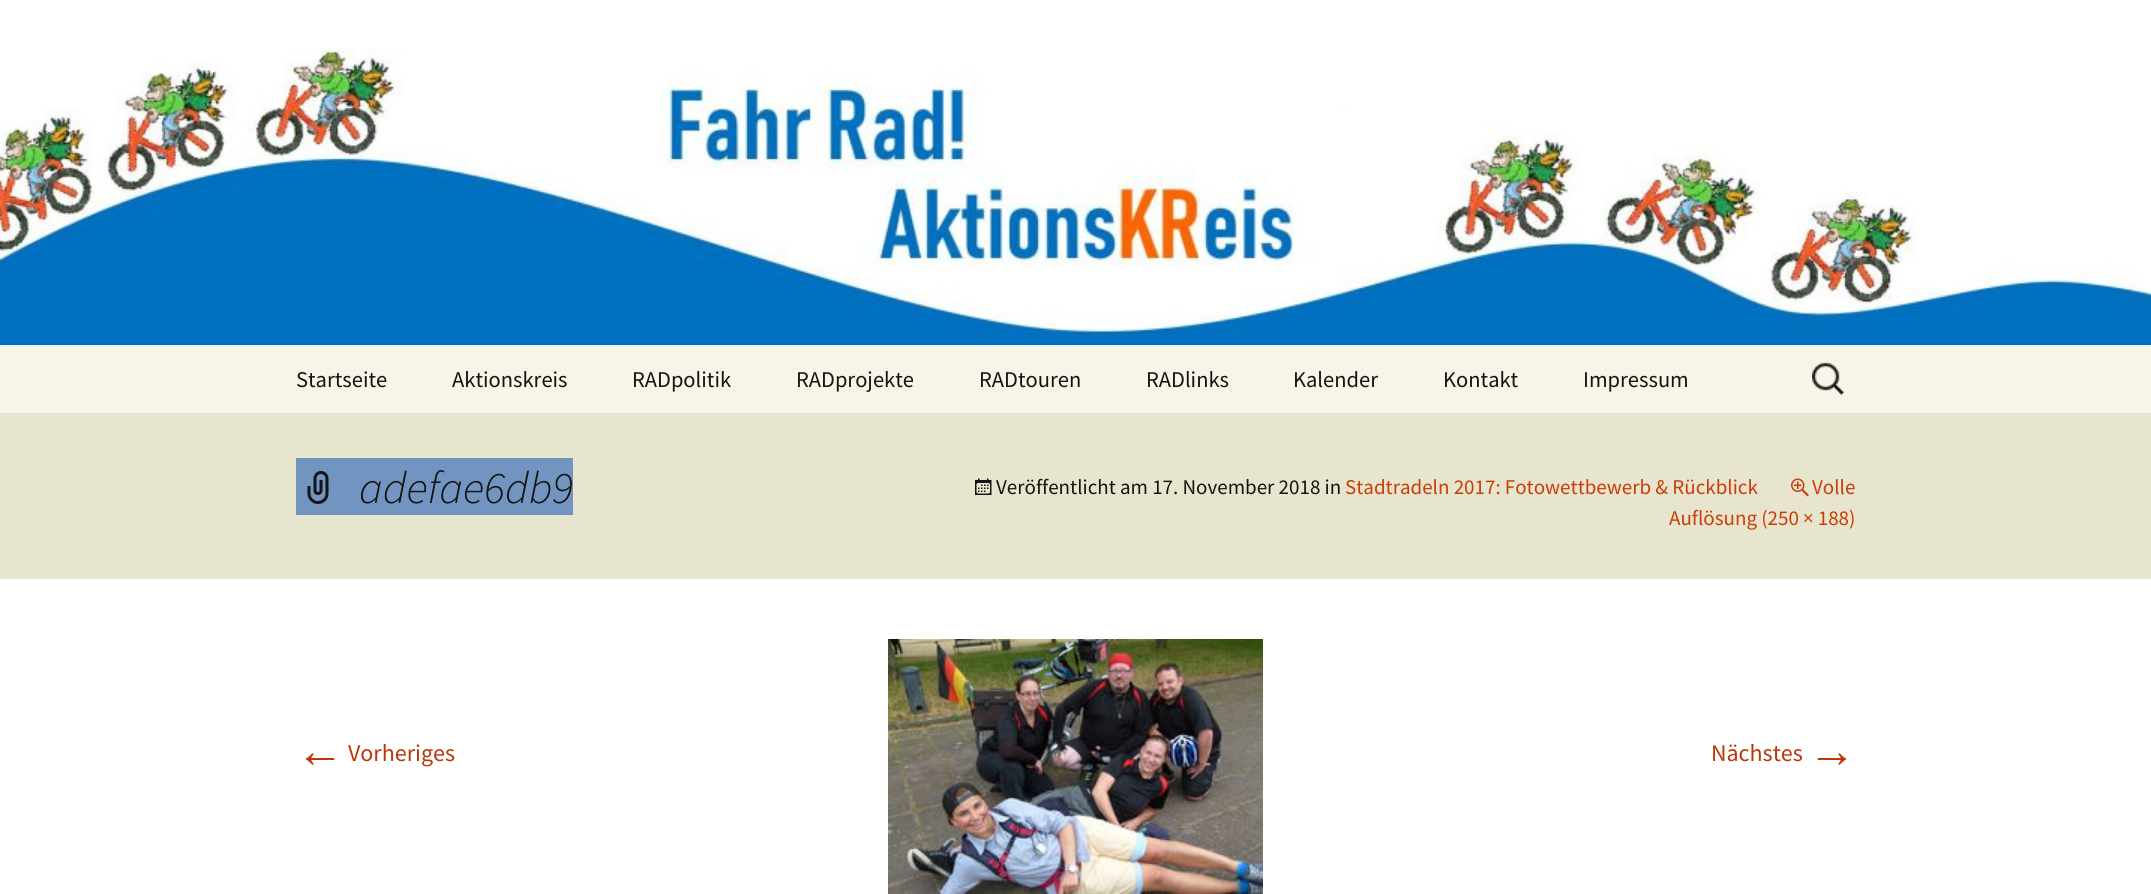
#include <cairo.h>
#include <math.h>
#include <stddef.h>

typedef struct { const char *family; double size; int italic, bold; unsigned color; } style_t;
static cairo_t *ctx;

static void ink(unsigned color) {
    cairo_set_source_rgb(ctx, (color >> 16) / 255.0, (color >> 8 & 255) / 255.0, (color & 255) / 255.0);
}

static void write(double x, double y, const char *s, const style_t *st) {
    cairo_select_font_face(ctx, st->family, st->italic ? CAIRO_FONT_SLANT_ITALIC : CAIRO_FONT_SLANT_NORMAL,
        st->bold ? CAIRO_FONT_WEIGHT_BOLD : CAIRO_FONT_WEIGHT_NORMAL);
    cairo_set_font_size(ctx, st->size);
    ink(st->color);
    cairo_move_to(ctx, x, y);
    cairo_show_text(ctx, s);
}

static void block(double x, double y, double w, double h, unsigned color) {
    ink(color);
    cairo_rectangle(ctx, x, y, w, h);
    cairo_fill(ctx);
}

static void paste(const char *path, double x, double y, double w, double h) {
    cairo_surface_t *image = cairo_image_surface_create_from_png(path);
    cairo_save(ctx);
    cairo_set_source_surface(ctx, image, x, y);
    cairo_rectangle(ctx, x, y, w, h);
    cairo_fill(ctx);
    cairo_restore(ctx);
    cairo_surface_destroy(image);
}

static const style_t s1 = {"Source Sans Pro", 22.5, 0, 0, 0x141412};
static const style_t s2 = {"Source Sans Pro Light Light", 45, 1, 0, 0x141412};
static const style_t s3 = {"Source Sans Pro", 21, 0, 0, 0x141412};
static const style_t s4 = {"Source Sans Pro", 21, 0, 0, 0xca3c08};
static const style_t s5 = {"Liberation Sans", 48, 0, 0, 0xbc360a};
static const style_t s6 = {"Source Sans Pro", 24, 0, 0, 0xbc360a};

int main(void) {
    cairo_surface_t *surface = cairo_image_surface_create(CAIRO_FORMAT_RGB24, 2151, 894);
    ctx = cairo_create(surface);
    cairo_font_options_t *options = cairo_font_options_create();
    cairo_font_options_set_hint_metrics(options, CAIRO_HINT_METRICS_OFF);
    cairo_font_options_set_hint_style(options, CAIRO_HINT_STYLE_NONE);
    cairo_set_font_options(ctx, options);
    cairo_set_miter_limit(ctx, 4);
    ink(0xffffff);
    cairo_paint(ctx);
    paste("pic1.png", 0, 48, 2151, 297);
    block(0, 345, 2151, 68, 0xf7f5e7);
    write(296, 387, "Startseite", &s1);
    write(452, 387, "Aktionskreis", &s1);
    write(632, 387, "RADpolitik", &s1);
    write(796, 387, "RADprojekte", &s1);
    write(979, 387, "RADtouren", &s1);
    write(1146, 387, "RADlinks", &s1);
    write(1293, 387, "Kalender", &s1);
    write(1443, 387, "Kontakt", &s1);
    write(1583, 387, "Impressum", &s1);
    paste("pic2.png", 1812, 362, 32, 33);
    block(0, 413, 2151, 166, 0xe8e5ce);
    block(296, 458, 277, 57, 0x7195c0);
    paste("pic3.png", 307, 471, 22, 33);
    write(359, 503, "adefae6db9", &s2);
    paste("pic4.png", 975, 478, 17, 17);
    write(996, 494, "Veröffentlicht am 17. November 2018 in", &s3);
    write(1345, 494, "Stadtradeln 2017: Fotowettbewerb & Rückblick", &s4);
    paste("pic5.png", 1791, 478, 18, 19);
    write(1812, 494, "Volle", &s4);
    write(1669, 525, "Auflösung (250 × 188)", &s4);
    paste("pic6.png", 888, 639, 375, 255);
    write(296, 767, "←", &s5);
    write(348, 761, "Vorheriges", &s6);
    write(1711, 761, "Nächstes", &s6);
    write(1808, 767, "→", &s5);
    cairo_surface_write_to_png(surface, "screenshot.png");
    cairo_font_options_destroy(options);
    cairo_destroy(ctx);
    cairo_surface_destroy(surface);
    return 0;
}
